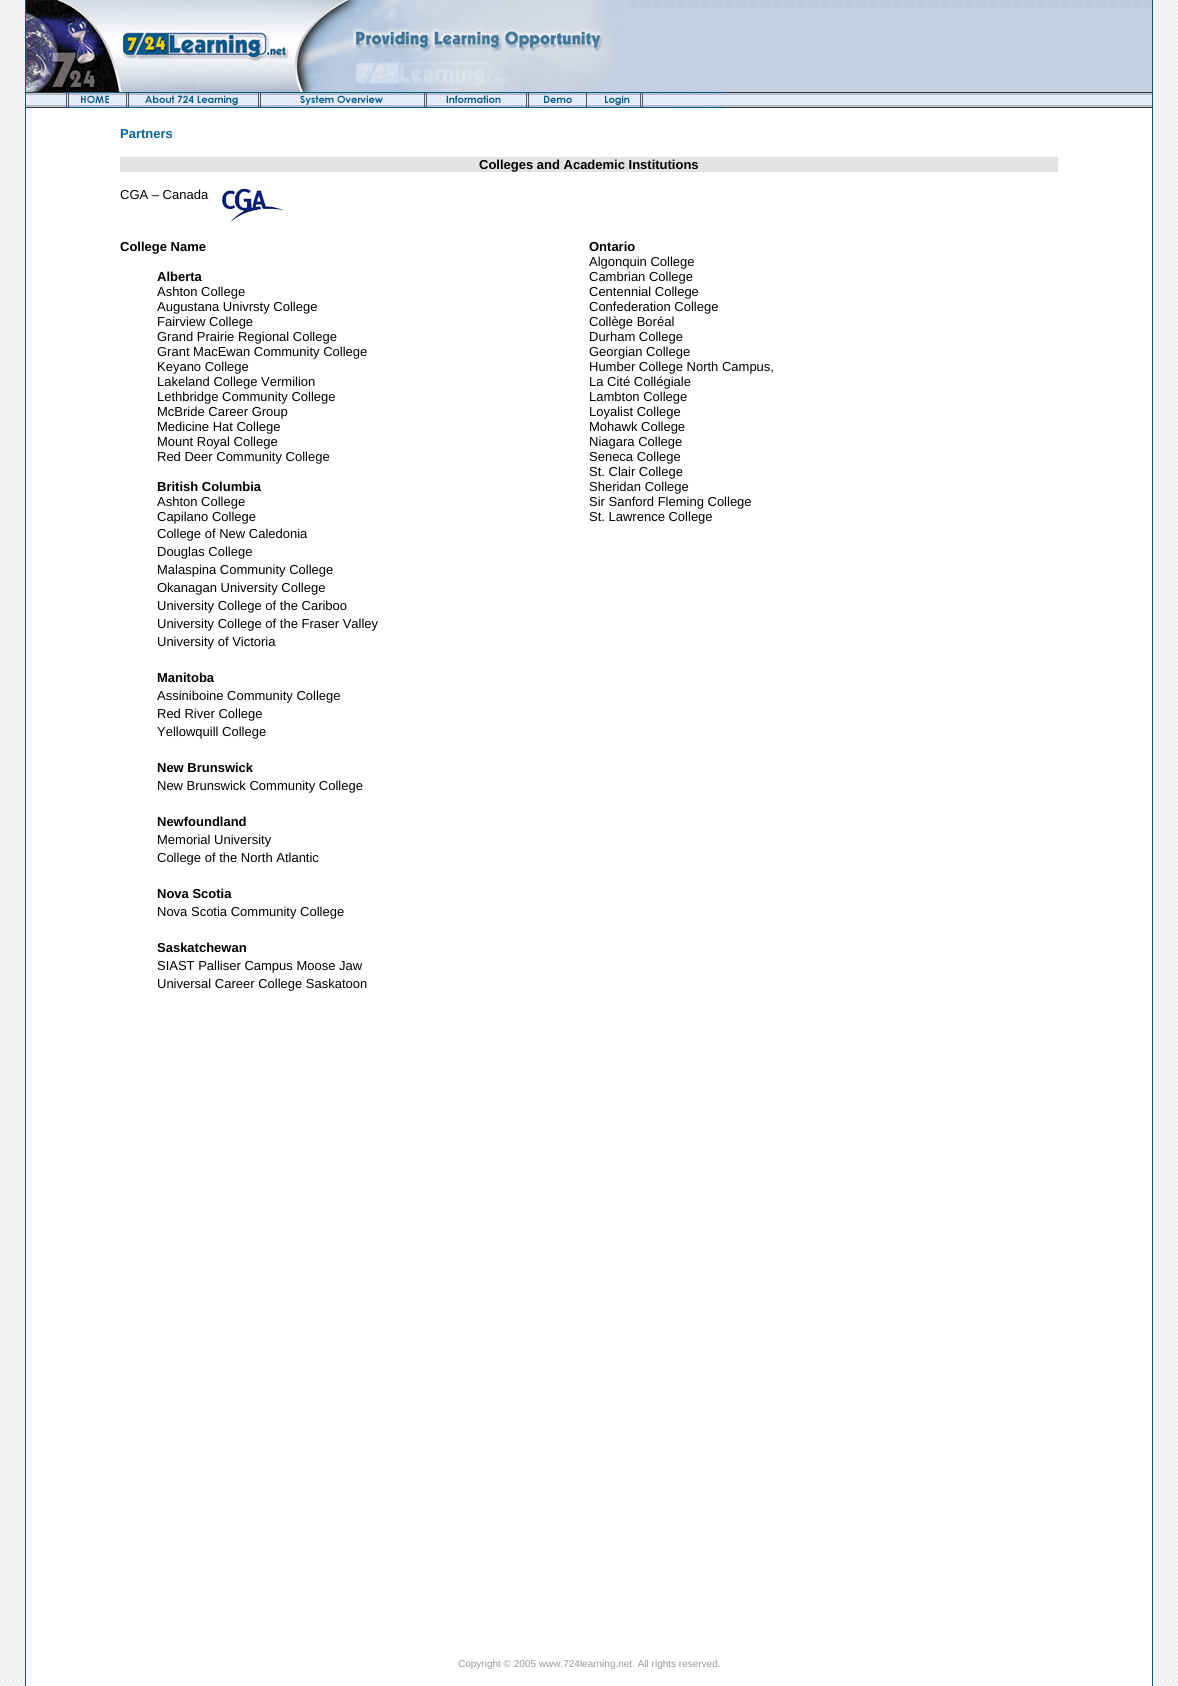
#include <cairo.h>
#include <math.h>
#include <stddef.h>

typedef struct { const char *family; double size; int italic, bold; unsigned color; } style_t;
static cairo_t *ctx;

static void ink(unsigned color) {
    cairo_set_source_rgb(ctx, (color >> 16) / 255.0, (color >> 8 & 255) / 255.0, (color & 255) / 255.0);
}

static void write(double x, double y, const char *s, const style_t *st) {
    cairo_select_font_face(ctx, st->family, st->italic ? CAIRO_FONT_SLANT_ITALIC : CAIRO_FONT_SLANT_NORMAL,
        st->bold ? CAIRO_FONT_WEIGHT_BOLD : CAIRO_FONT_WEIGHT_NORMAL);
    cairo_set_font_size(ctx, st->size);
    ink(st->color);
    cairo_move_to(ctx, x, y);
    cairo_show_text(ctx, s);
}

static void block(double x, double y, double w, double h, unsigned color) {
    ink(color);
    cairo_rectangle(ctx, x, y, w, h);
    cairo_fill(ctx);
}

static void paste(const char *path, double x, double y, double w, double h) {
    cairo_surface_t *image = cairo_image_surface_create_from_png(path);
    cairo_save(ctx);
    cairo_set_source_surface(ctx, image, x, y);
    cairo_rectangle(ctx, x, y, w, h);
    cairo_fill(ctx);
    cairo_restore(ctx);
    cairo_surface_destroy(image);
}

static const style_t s1 = {"Liberation Sans", 13, 0, 1, 0x006699};
static const style_t s2 = {"Liberation Sans", 13, 0, 1, 0x000000};
static const style_t s3 = {"Liberation Sans", 13, 0, 0, 0x000000};
static const style_t s4 = {"Liberation Sans", 10, 0, 0, 0x999999};

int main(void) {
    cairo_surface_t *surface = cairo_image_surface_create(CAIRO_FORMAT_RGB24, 1178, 1686);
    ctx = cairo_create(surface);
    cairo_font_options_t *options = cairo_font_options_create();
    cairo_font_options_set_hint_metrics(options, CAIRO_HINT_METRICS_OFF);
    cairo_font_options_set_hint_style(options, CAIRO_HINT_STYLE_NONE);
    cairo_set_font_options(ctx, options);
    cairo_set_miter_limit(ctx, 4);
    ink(0xffffff);
    cairo_paint(ctx);
    paste("pic1.png", 0, 0, 1178, 1686);
    block(26, 108, 1126, 1578, 0xffffff);
    paste("pic2.png", 626, 0, 526, 92);
    paste("pic3.png", 26, 0, 600, 92);
    paste("pic4.png", 26, 92, 1126, 16);
    paste("pic5.png", 66, 92, 62, 16);
    paste("pic6.png", 128, 92, 132, 16);
    paste("pic7.png", 260, 92, 166, 16);
    paste("pic8.png", 426, 92, 101, 16);
    paste("pic9.png", 527, 92, 58, 16);
    paste("pic10.png", 585, 92, 58, 16);
    paste("pic11.png", 643, 92, 81, 16);
    write(120, 138, "Partners", &s1);
    block(120, 157, 938, 15, 0xe3e3e3);
    write(479, 169, "Colleges and Academic Institutions", &s2);
    write(120, 199, "CGA – Canada", &s3);
    paste("pic12.png", 221, 188, 64, 35);
    write(120, 251, "College Name", &s2);
    write(589, 251, "Ontario", &s2);
    write(589, 266, "Algonquin College", &s3);
    write(157, 281, "Alberta", &s2);
    write(589, 281, "Cambrian College", &s3);
    write(157, 296, "Ashton College", &s3);
    write(589, 296, "Centennial College", &s3);
    write(157, 311, "Augustana Univrsty College", &s3);
    write(589, 311, "Confederation College", &s3);
    write(157, 326, "Fairview College", &s3);
    write(589, 326, "Collège Boréal", &s3);
    write(157, 341, "Grand Prairie Regional College", &s3);
    write(589, 341, "Durham College", &s3);
    write(157, 356, "Grant MacEwan Community College", &s3);
    write(589, 356, "Georgian College", &s3);
    write(157, 371, "Keyano College", &s3);
    write(589, 371, "Humber College North Campus,", &s3);
    write(157, 386, "Lakeland College Vermilion", &s3);
    write(589, 386, "La Cité Collégiale", &s3);
    write(157, 401, "Lethbridge Community College", &s3);
    write(589, 401, "Lambton College", &s3);
    write(157, 416, "McBride Career Group", &s3);
    write(589, 416, "Loyalist College", &s3);
    write(157, 431, "Medicine Hat College", &s3);
    write(589, 431, "Mohawk College", &s3);
    write(157, 446, "Mount Royal College", &s3);
    write(589, 446, "Niagara College", &s3);
    write(157, 461, "Red Deer Community College", &s3);
    write(589, 461, "Seneca College", &s3);
    write(589, 476, "St. Clair College", &s3);
    write(157, 491, "British Columbia", &s2);
    write(589, 491, "Sheridan College", &s3);
    write(157, 506, "Ashton College", &s3);
    write(589, 506, "Sir Sanford Fleming College", &s3);
    write(157, 521, "Capilano College", &s3);
    write(589, 521, "St. Lawrence College", &s3);
    write(157, 538, "College of New Caledonia", &s3);
    write(157, 556, "Douglas College", &s3);
    write(157, 574, "Malaspina Community College", &s3);
    write(157, 592, "Okanagan University College", &s3);
    write(157, 610, "University College of the Cariboo", &s3);
    write(157, 628, "University College of the Fraser Valley", &s3);
    write(157, 646, "University of Victoria", &s3);
    write(157, 682, "Manitoba", &s2);
    write(157, 700, "Assiniboine Community College", &s3);
    write(157, 718, "Red River College", &s3);
    write(157, 736, "Yellowquill College", &s3);
    write(157, 772, "New Brunswick", &s2);
    write(157, 790, "New Brunswick Community College", &s3);
    write(157, 826, "Newfoundland", &s2);
    write(157, 844, "Memorial University", &s3);
    write(157, 862, "College of the North Atlantic", &s3);
    write(157, 898, "Nova Scotia", &s2);
    write(157, 916, "Nova Scotia Community College", &s3);
    write(157, 952, "Saskatchewan", &s2);
    write(157, 970, "SIAST Palliser Campus Moose Jaw", &s3);
    write(157, 988, "Universal Career College Saskatoon", &s3);
    block(1152, 0, 1, 1686, 0x065a89);
    block(25, 0, 1, 1686, 0x065a89);
    write(458, 1667, "Copyright © 2005 www.724learning.net. All rights reserved.", &s4);
    cairo_surface_write_to_png(surface, "screenshot.png");
    cairo_font_options_destroy(options);
    cairo_destroy(ctx);
    cairo_surface_destroy(surface);
    return 0;
}
